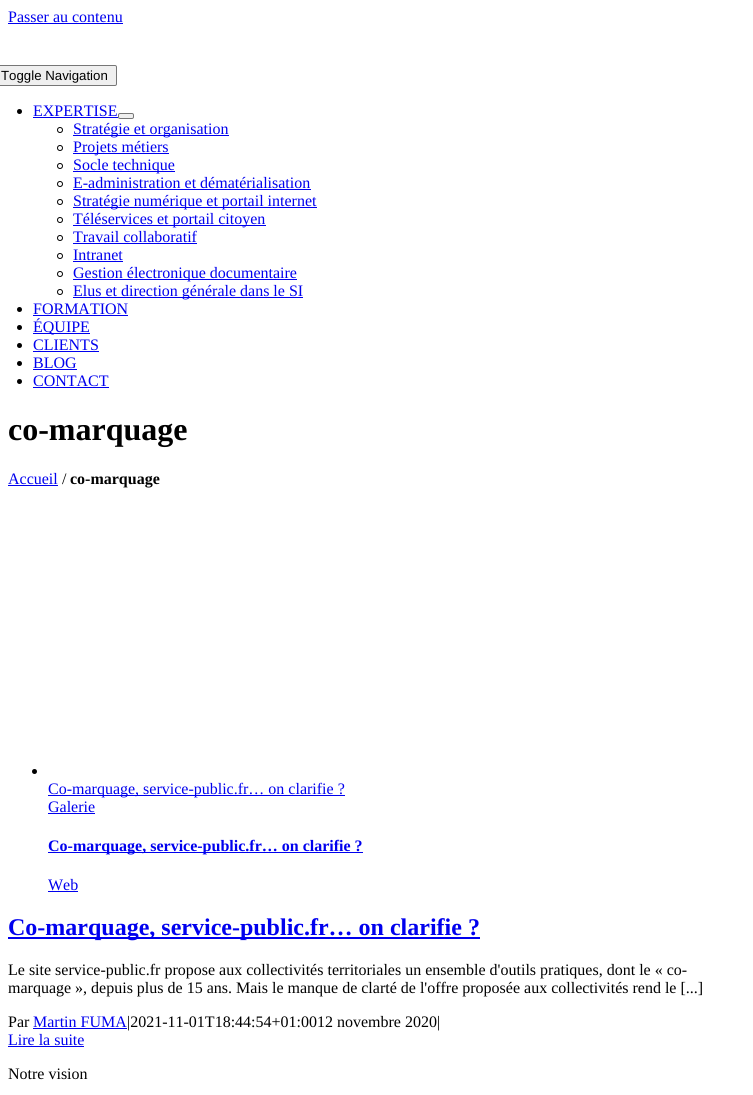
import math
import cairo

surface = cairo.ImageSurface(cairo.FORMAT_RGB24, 753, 1095)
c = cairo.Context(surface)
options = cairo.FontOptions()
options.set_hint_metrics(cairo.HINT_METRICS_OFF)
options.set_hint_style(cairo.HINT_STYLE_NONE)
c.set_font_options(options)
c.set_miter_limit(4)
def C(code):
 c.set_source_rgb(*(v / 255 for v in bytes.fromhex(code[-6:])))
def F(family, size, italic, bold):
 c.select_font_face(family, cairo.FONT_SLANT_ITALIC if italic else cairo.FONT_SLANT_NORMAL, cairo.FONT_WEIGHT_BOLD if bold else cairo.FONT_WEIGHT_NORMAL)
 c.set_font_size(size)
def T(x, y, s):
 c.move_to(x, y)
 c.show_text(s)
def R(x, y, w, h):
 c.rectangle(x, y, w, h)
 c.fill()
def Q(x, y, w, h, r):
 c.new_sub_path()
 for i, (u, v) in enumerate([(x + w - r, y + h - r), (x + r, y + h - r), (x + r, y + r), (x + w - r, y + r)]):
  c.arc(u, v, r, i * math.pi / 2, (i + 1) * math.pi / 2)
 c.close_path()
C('ffffff')
c.paint()
F('Liberation Serif',16,0,0)
C('0000ee')
T(8,22,'Passer au contenu')
R(8,23,115,1)
C('efefef')
Q(-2.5,65.5,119,20,1.5)
c.fill_preserve()
C('767676')
c.set_line_width(1)
c.stroke()
F('Liberation Sans',13.25,0,0)
C('000000')
T(1,80,'Toggle Navigation')
c.new_path()
c.arc(19.5,111.5,2.5,0,2 * math.pi)
c.fill()
F('Liberation Serif',16,0,0)
C('0000ee')
T(33,116,'EXPERTISE')
R(33,117,85,1)
C('efefef')
Q(118.5,113.5,15,5,1.5)
c.fill_preserve()
C('767676')
c.stroke()
c.arc(60,130,2.5,0,2 * math.pi)
C('000000')
c.stroke()
C('0000ee')
R(73,135,156,1)
T(73,134,'Stratégie et organisation')
c.new_path()
c.arc(60,148,2.5,0,2 * math.pi)
C('000000')
c.stroke()
C('0000ee')
R(73,153,96,1)
T(73,152,'Projets métiers')
c.new_path()
c.arc(60,166,2.5,0,2 * math.pi)
C('000000')
c.stroke()
C('0000ee')
R(73,171,102,1)
T(73,170,'Socle technique')
c.new_path()
c.arc(60,184,2.5,0,2 * math.pi)
C('000000')
c.stroke()
C('0000ee')
T(73,188,'E-administration et dématérialisation')
R(73,189,238,1)
c.new_path()
c.arc(60,202,2.5,0,2 * math.pi)
C('000000')
c.stroke()
C('0000ee')
R(73,207,244,1)
T(73,206,'Stratégie numérique et portail internet')
c.new_path()
c.arc(60,220,2.5,0,2 * math.pi)
C('000000')
c.stroke()
C('0000ee')
R(73,225,193,1)
T(73,224,'Téléservices et portail citoyen')
c.new_path()
c.arc(60,238,2.5,0,2 * math.pi)
C('000000')
c.stroke()
C('0000ee')
T(73,242,'Travail collaboratif')
R(73,243,124,1)
c.new_path()
c.arc(60,256,2.5,0,2 * math.pi)
C('000000')
c.stroke()
C('0000ee')
T(73,260,'Intranet')
R(73,261,50,1)
c.new_path()
c.arc(60,274,2.5,0,2 * math.pi)
C('000000')
c.stroke()
C('0000ee')
R(73,279,224,1)
T(73,278,'Gestion électronique documentaire')
c.new_path()
c.arc(60,292,2.5,0,2 * math.pi)
C('000000')
c.stroke()
C('0000ee')
R(73,297,230,1)
T(73,296,'Elus et direction générale dans le SI')
C('000000')
c.new_path()
c.arc(19.5,309.5,2.5,0,2 * math.pi)
c.fill()
C('0000ee')
T(33,314,'FORMATION')
R(33,315,95,1)
C('000000')
c.new_path()
c.arc(19.5,327.5,2.5,0,2 * math.pi)
c.fill()
C('0000ee')
R(33,333,57,1)
T(33,332,'ÉQUIPE')
C('000000')
c.new_path()
c.arc(19.5,345.5,2.5,0,2 * math.pi)
c.fill()
C('0000ee')
T(33,350,'CLIENTS')
R(33,351,66,1)
C('000000')
c.new_path()
c.arc(19.5,363.5,2.5,0,2 * math.pi)
c.fill()
C('0000ee')
T(33,368,'BLOG')
R(33,369,44,1)
C('000000')
c.new_path()
c.arc(19.5,381.5,2.5,0,2 * math.pi)
c.fill()
C('0000ee')
T(33,386,'CONTACT')
R(33,387,76,1)
F('Liberation Serif',32,0,1)
C('000000')
T(8,440,'co-marquage')
F('Liberation Serif',16,0,0)
C('0000ee')
T(8,484,'Accueil')
R(8,485,50,1)
C('000000')
T(62,484,'/')
F('Liberation Serif',16,0,1)
T(70,484,'co-marquage')
c.new_path()
c.arc(34.5,771.5,2.5,0,2 * math.pi)
c.fill()
C('0000ee')
R(48,795,297,1)
F('Liberation Serif',16,0,0)
T(48,794,'Co-marquage, service-public.fr… on clarifie ?')
T(48,812,'Galerie')
R(48,813,47,1)
R(48,852,315,1)
F('Liberation Serif',16,0,1)
T(48,851,'Co-marquage, service-public.fr… on clarifie ?')
F('Liberation Serif',16,0,0)
T(48,890,'Web')
R(48,891,30,1)
R(8,937,472,2)
F('Liberation Serif',24,0,1)
T(8,935,'Co-marquage, service-public.fr… on clarifie ?')
F('Liberation Serif',16,0,0)
C('000000')
T(8,975,'Le site service-public.fr propose aux collectivités territoriales un ensemble d\'outils pratiques, dont le « co-')
T(8,993,'marquage », depuis plus de 15 ans. Mais le manque de clarté de l\'offre proposée aux collectivités rend le [...]')
T(8,1027,'Par')
C('0000ee')
T(33,1027,'Martin FUMA')
R(33,1028,94,1)
C('000000')
T(127,1027,'|2021-11-01T18:44:54+01:0012 novembre 2020|')
C('0000ee')
T(8,1045,'Lire la suite')
R(8,1046,76,1)
C('000000')
T(8,1079,'Notre vision')
surface.write_to_png('o.png')
